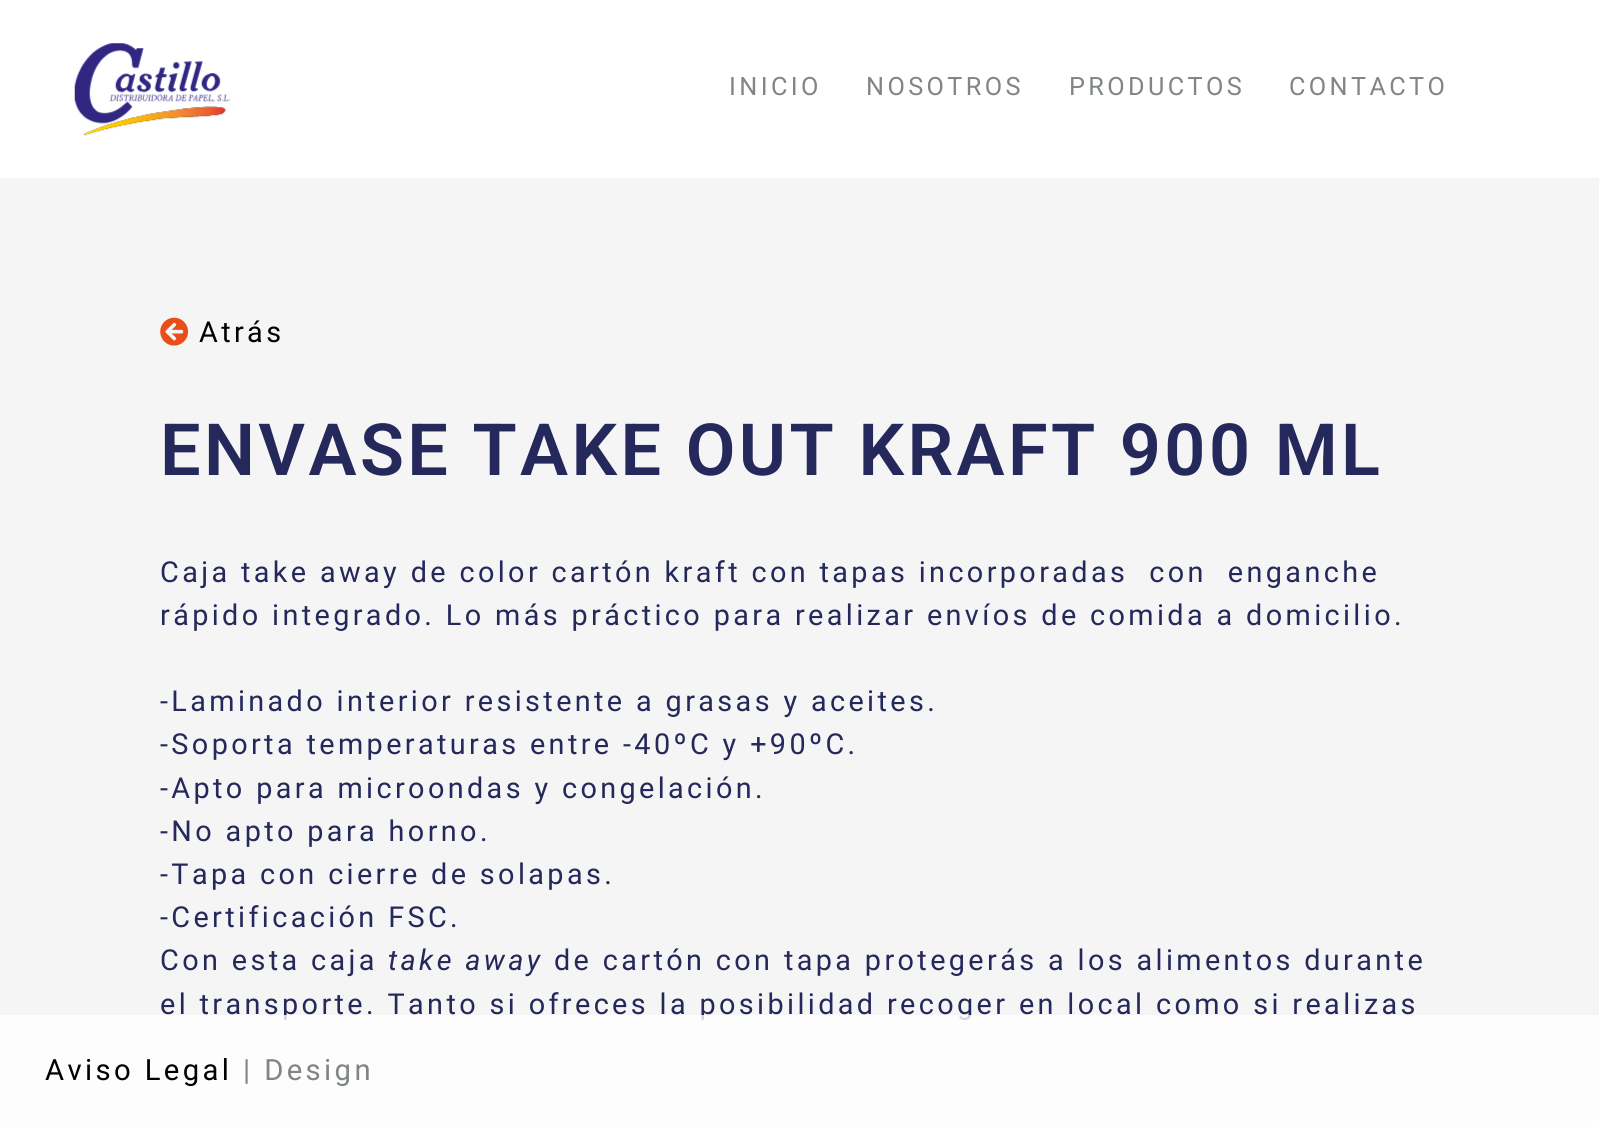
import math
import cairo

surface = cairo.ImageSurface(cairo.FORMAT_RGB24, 1599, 1127)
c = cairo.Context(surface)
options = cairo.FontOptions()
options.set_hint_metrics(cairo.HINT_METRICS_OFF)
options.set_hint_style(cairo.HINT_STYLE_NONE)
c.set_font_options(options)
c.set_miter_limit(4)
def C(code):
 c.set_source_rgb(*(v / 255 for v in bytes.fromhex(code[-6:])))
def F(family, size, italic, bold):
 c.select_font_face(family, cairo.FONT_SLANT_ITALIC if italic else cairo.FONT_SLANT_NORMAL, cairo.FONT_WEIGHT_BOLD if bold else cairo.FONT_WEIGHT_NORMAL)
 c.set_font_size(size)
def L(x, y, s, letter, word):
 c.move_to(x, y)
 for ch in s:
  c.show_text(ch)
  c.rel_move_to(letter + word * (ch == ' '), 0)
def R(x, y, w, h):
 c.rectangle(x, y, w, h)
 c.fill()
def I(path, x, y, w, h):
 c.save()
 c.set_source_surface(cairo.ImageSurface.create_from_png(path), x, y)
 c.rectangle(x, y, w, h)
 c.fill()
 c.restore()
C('f5f5f5')
c.paint()
C('ffffff')
R(0,0,1599,178)
I('1.png',74,43,156,93)
F('Roboto',25.25,0,0)
C('818587')
L(729,95,'INICIO',3.38,0)
L(866,95,'NOSOTROS',3.38,0)
L(1069,95,'PRODUCTOS',3.38,0)
L(1289,95,'CONTACTO',3.38,0)
I('2.png',160,317,29,29)
F('Roboto',28.8,0,0)
C('000000')
L(199,342,'Atrás',3.38,0)
F('Roboto SemiBold',72,0,0)
C('25285a')
L(160,475,'ENVASE TAKE OUT KRAFT 900 ML',3.38,0)
F('Roboto',28.8,0,0)
L(160,582,'Caja take away de color cartón kraft con tapas incorporadas  con  enganche',3.38,0)
L(160,625,'rápido integrado. Lo más práctico para realizar envíos de comida a domicilio.',3.38,0)
L(160,711,'-Laminado interior resistente a grasas y aceites.',3.38,0)
L(160,754,'-Soporta temperaturas entre -40ºC y +90ºC.',3.38,0)
L(160,798,'-Apto para microondas y congelación.',3.38,0)
L(160,841,'-No apto para horno.',3.38,0)
L(160,884,'-Tapa con cierre de solapas.',3.38,0)
L(160,927,'-Certificación FSC.',3.38,0)
L(160,970,'Con esta caja',3.38,0)
F('Roboto',28.8,1,0)
L(388,970,'take away',3.38,0)
F('Roboto',28.8,0,0)
L(554,970,'de cartón con tapa protegerás a los alimentos durante',3.38,0)
L(160,1014,'el transporte. Tanto si ofreces la posibilidad recoger en local como si realizas',3.38,0)
c.set_source_rgba(1,1,1,0.8)
R(0,1015,1599,112)
F('Roboto',29.25,0,0)
C('000000')
L(45,1080,'Aviso Legal',3.38,0)
C('818587')
L(243,1080,'| Design',3.38,0)
surface.write_to_png('o.png')
